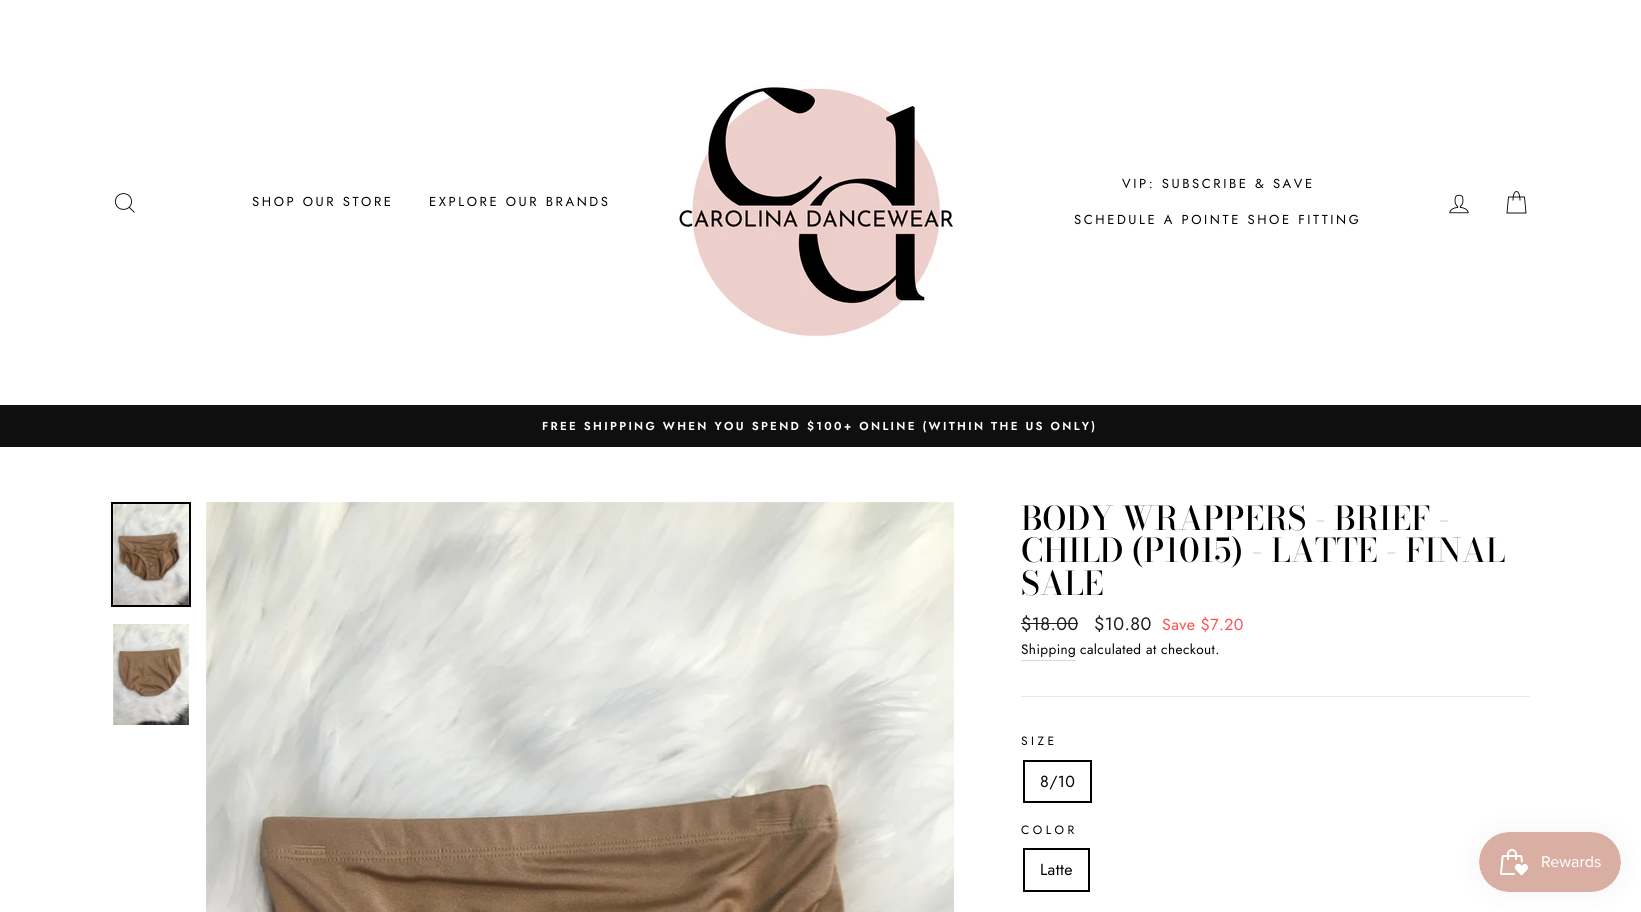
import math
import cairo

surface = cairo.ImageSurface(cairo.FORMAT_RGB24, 1641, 912)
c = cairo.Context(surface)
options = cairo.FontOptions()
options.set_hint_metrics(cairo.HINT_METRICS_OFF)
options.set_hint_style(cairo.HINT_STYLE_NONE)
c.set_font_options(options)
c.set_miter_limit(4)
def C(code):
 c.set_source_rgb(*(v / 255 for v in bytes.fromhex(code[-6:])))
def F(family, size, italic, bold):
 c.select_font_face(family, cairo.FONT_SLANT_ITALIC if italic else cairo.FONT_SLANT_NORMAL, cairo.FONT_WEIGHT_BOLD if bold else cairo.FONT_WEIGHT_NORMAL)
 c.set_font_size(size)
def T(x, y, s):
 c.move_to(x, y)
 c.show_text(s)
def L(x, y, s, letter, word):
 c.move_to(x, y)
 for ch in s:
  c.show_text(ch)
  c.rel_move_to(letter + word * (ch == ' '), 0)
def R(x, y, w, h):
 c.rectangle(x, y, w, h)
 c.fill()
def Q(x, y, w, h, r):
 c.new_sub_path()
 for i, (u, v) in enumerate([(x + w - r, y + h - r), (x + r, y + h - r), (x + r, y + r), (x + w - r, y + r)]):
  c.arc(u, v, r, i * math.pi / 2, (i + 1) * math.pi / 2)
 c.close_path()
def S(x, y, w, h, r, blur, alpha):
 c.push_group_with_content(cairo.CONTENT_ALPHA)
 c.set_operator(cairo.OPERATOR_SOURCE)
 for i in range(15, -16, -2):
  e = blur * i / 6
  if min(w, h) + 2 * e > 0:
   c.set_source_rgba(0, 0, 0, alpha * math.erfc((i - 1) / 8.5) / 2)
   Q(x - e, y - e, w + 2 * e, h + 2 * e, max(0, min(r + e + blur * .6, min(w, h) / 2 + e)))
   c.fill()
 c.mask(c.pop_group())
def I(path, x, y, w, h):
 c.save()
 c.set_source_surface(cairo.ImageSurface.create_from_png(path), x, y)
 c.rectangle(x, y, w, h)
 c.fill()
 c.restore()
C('ffffff')
c.paint()
c.new_path()
c.move_to(131.5,201.5)
c.curve_to(131.5,212,115.5,212,115.5,201.5)
c.curve_to(115.5,191,131.5,191,131.5,201.5)
c.close_path()
c.move_to(134.5,212.5)
c.line_to(129.5,207.5)
C('000000')
c.set_line_width(.9)
c.stroke()
F('Jost',13,0,0)
L(252,206,'SHOP OUR STORE',2.6,0)
L(429,206,'EXPLORE OUR BRANDS',2.6,0)
I('1.png',676,86,278,251)
L(1122,188,'VIP: SUBSCRIBE & SAVE',2.6,0)
L(1074,224,'SCHEDULE A POINTE SHOE FITTING',2.6,0)
I('2.png',1449,194,20,20)
c.new_path()
c.move_to(1513,200.5)
c.curve_to(1513,188.5,1520,188.5,1520,200.5)
c.move_to(1508.5,197)
c.line_to(1524.5,197)
c.line_to(1526,213)
c.line_to(1507,213)
c.close_path()
c.stroke()
C('0f0f0f')
R(0,405,1641,42)
F('Jost SemiBold',11.55,0,0)
C('ffffff')
L(542,430,'FREE SHIPPING WHEN YOU SPEND $100+ ONLINE (WITHIN THE US ONLY)',2.3,0)
c.rectangle(112,503,78,103)
C('000000')
c.set_line_width(2)
c.stroke()
I('3.png',113,504,76,101)
I('4.png',113,624,76,101)
I('5.png',206,502,748,410)
F('Bodoni Moda Medium',32.7,0,0)
T(1021,530,'BODY WRAPPERS - BRIEF -')
T(1021,562,'CHILD (P1015) - LATTE - FINAL')
T(1021,595,'SALE')
F('Jost',18,0,0)
C('1c1d1d')
L(1021,630,'$18.00',.4,0)
R(1021,623,57,1)
L(1094,630,'$10.80',.4,0)
F('Jost',16,0,0)
C('ff4e4e')
L(1162,630,'Save $7.20',.4,0)
C('d9d9d9')
R(1021,660,55,1)
F('Jost',13.6,0,0)
C('000000')
L(1021,654,'Shipping',.4,0)
L(1080,654,'calculated at checkout.',.4,0)
C('e8e8e1')
R(1021,696,509,1)
F('Jost',12,0,0)
C('000000')
L(1021,745,'SIZE',3.5,0)
c.rectangle(1024,761,67,41)
c.stroke()
F('Jost',16,0,0)
L(1040,787,'8/10',.4,0)
F('Jost',12,0,0)
L(1021,834,'COLOR',3.5,0)
c.rectangle(1024,849,65,42)
c.stroke()
F('Jost',16,0,0)
L(1040,875,'Latte',.4,0)
C('000000')
S(1479,832,142,60,30,12.5,.05)
I('6.png',1479,832,142,60)
surface.write_to_png('o.png')
